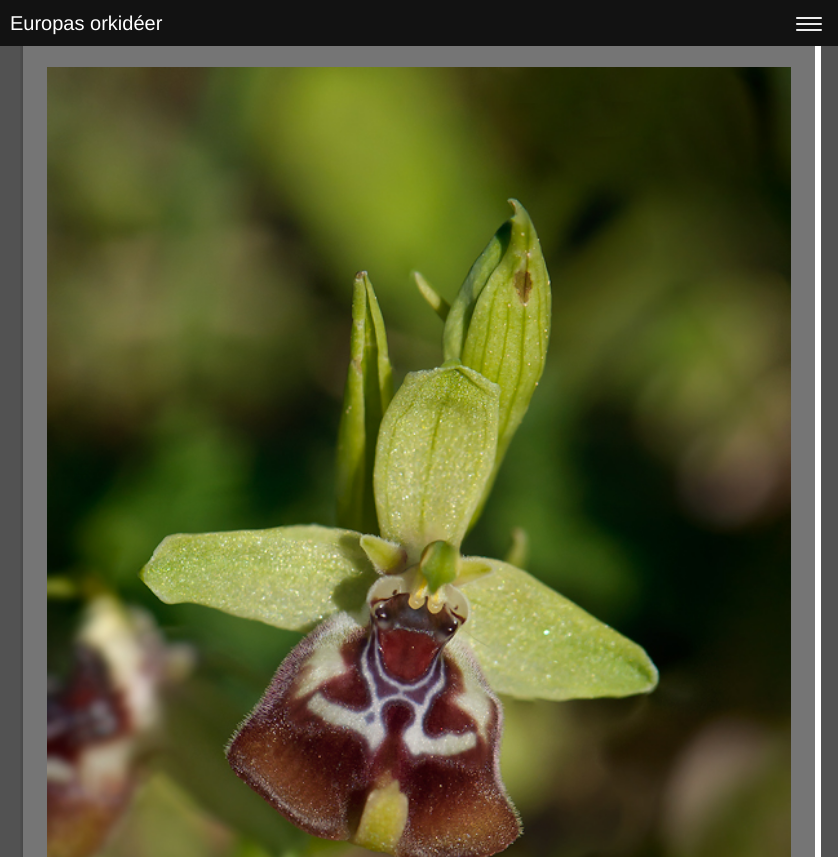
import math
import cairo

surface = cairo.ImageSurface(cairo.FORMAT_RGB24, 838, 857)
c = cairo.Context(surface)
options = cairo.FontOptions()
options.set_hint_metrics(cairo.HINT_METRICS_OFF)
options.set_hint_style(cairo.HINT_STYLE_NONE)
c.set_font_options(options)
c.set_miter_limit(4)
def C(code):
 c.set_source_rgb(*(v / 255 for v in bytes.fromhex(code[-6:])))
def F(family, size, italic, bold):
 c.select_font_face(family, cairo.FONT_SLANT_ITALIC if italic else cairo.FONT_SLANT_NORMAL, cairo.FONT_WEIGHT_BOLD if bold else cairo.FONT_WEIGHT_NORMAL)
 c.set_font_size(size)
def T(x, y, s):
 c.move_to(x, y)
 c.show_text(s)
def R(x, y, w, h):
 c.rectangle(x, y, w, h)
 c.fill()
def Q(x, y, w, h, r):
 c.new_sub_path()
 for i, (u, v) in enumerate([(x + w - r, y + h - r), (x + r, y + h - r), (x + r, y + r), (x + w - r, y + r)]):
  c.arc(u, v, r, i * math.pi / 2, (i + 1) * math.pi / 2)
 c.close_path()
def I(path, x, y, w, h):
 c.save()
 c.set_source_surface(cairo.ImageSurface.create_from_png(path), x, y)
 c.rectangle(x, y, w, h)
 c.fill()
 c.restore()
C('525252')
c.paint()
C('121212')
R(0,0,838,46)
F('Liberation Sans',20,0,0)
C('ffffff')
T(10,30,'Europas orkidéer')
C('eeeeee')
Q(796,17,26,2,1)
c.fill()
Q(796,23,26,2,1)
c.fill()
Q(796,29,26,2,1)
c.fill()
I('1.png',20,46,801,811)
C('757575')
R(23,46,792,811)
I('2.png',47,67,744,790)
surface.write_to_png('o.png')
